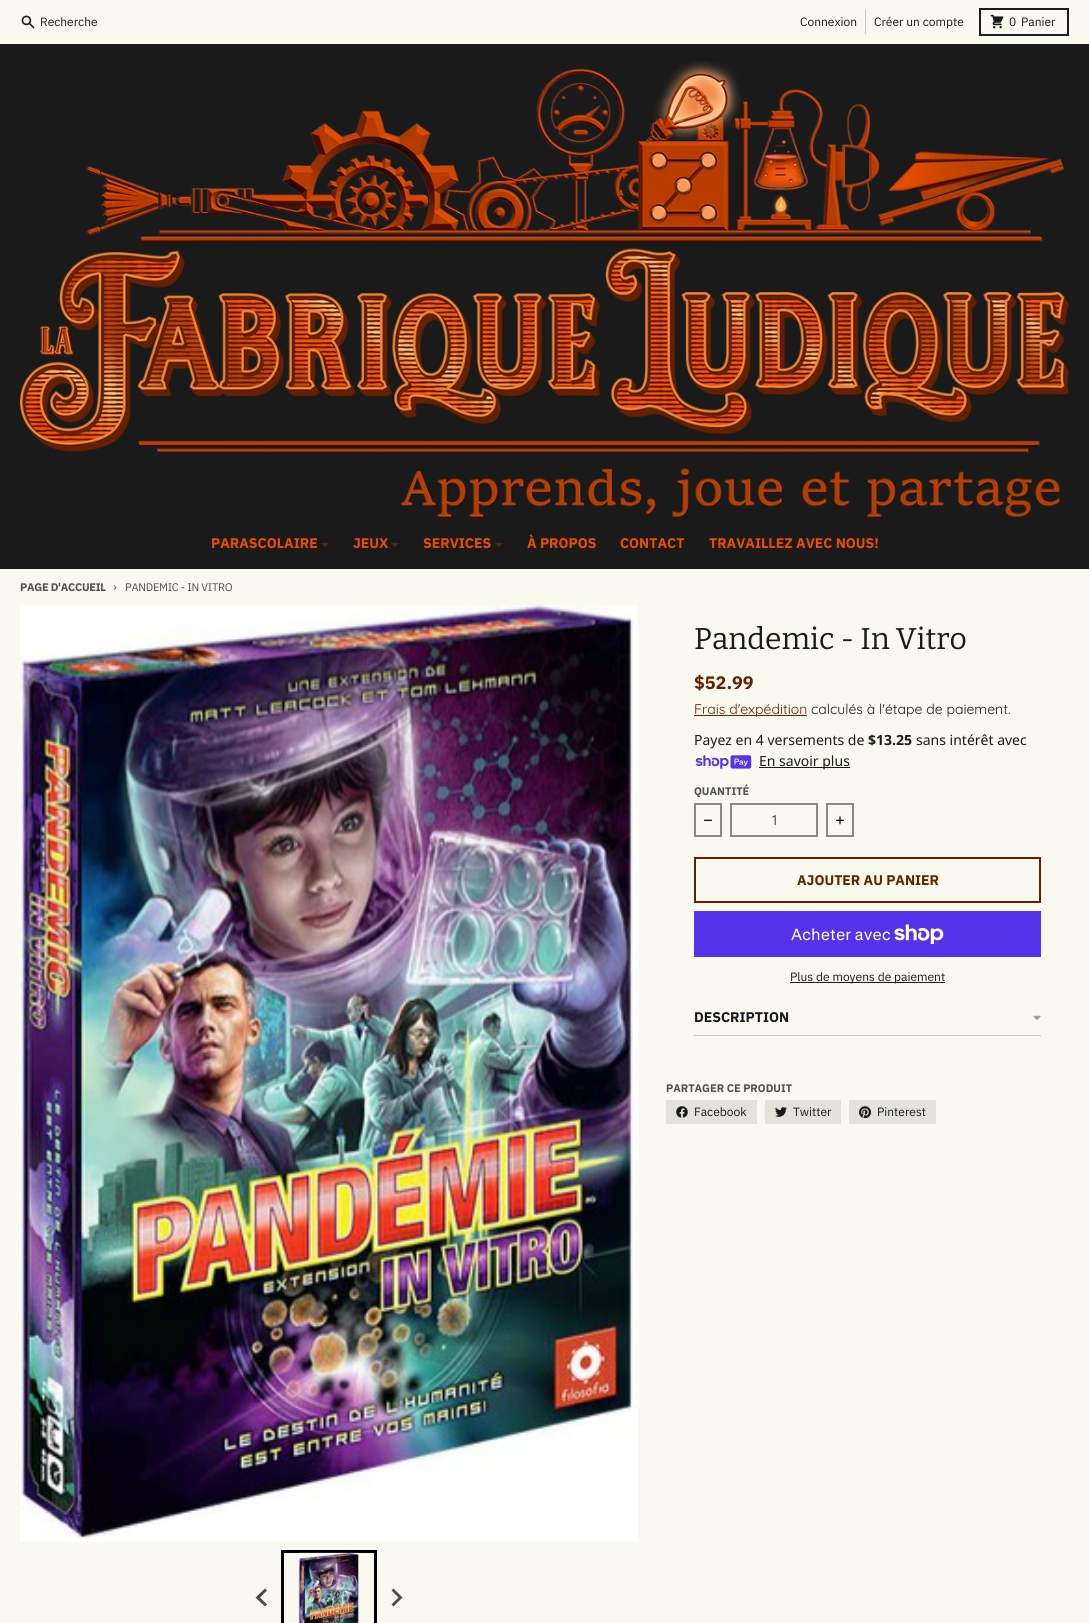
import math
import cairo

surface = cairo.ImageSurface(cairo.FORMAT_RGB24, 1089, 1623)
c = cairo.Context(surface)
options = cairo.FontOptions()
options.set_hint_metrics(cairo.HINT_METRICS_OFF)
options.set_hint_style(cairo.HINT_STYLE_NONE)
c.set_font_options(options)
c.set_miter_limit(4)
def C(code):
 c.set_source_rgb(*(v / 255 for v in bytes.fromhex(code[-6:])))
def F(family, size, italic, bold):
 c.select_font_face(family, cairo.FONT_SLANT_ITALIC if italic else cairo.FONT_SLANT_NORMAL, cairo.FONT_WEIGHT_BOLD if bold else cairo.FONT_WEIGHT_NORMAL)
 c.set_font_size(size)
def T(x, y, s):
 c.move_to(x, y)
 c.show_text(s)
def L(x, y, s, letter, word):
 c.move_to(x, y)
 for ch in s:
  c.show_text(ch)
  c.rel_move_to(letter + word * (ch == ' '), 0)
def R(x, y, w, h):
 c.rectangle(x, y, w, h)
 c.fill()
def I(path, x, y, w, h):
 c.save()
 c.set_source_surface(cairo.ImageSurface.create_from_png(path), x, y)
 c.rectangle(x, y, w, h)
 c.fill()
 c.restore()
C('1a1a1a')
c.paint()
C('f9f9ef')
R(0,0,1089,44)
I('1.png',21,15,14,14)
F('IBM Plex Sans',12,0,0)
C('1a1a1a')
T(40,26,'Recherche')
T(800,26,'Connexion')
C('ccccc4')
R(865,10,1,24)
C('1a1a1a')
T(874,26,'Créer un compte')
c.rectangle(980,9,88,26)
c.stroke()
I('2.png',990,14,14,15)
T(1009,26,'0')
T(1021,26,'Panier')
I('3.png',20,61,1049,456)
F('IBM Plex Sans',14,0,1)
C('ea4e00')
T(211,548,'PARASCOLAIRE')
I('4.png',321,542,8,5)
T(353,548,'JEUX')
I('4.png',391,542,8,5)
T(423,548,'SERVICES')
I('4.png',495,542,8,5)
T(527,548,'À PROPOS')
T(620,548,'CONTACT')
T(709,548,'TRAVAILLEZ AVEC NOUS!')
C('f9f9ef')
R(0,569,1089,1054)
F('IBM Plex Sans',11,0,1)
C('52524f')
L(20,591,'PAGE D\'ACCUEIL',-.25,0)
F('IBM Plex Sans',12,0,0)
L(113,591,'›',-.25,0)
F('IBM Plex Sans',11,0,0)
L(125,591,'PANDEMIC - IN VITRO',-.25,0)
I('5.png',20,605,618,937)
c.rectangle(282.5,1551.5,93,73)
C('000000')
c.set_line_width(3)
c.stroke()
I('6.png',298,1552,61,71)
C('4b4b48')
c.new_path()
c.move_to(265,1588.5)
c.line_to(267,1590.5)
c.line_to(260,1597.5)
c.line_to(267,1604.5)
c.line_to(265,1606.5)
c.line_to(255.5,1597.5)
c.close_path()
c.fill()
c.new_path()
c.move_to(393.5,1588.5)
c.line_to(391.5,1590.5)
c.line_to(398.5,1597.5)
c.line_to(391.5,1604.5)
c.line_to(393.5,1606.5)
c.line_to(402.5,1597.5)
c.close_path()
c.fill()
F('Bitter',30,0,0)
C('1a1a1a')
T(694,649,'Pandemic - In Vitro')
F('IBM Plex Sans',18,0,1)
C('652200')
T(694,689,'$52.99')
R(694,715,113,1)
F('Quicksand',14,0,0)
T(694,714,'Frais d\'expédition')
C('1a1a1a')
T(811,714,'calculés à l\'étape de paiement.')
F('Noto Sans',14,0,0)
T(694,745,'Payez en 4 versements de')
F('Noto Sans',14,0,1)
T(868,745,'$13.25')
F('Noto Sans',14,0,0)
T(916,745,'sans intérêt avec')
I('7.png',695,755,57,14)
R(759,767,91,1)
T(759,766,'En savoir plus')
F('IBM Plex Sans',11,0,1)
C('52524f')
T(694,795,'QUANTITÉ')
c.rectangle(695,804,26,32)
C('8a8a85')
c.set_line_width(2)
c.stroke()
I('8.png',704,819,8,2)
c.rectangle(731,804,86,32)
c.stroke()
F('Quicksand',14,0,0)
C('1a1a1a')
T(772,825,'1')
c.rectangle(827,804,26,32)
C('8a8a85')
c.stroke()
I('9.png',836,816,8,9)
c.rectangle(695,858,345,44)
C('652200')
c.stroke()
F('IBM Plex Sans',14,0,1)
T(797,885,'AJOUTER AU PANIER')
C('5433eb')
R(694,911,347,46)
F('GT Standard',16,0,0)
C('ffffff')
T(791,940,'Acheter avec')
I('10.png',894,924,50,20)
C('1a1a1a')
R(790,982,155,1)
F('IBM Plex Sans',12,0,0)
T(790,981,'Plus de moyens de paiement')
C('ccccc4')
R(694,1035,347,1)
F('IBM Plex Sans',14,0,1)
C('1a1a1a')
T(694,1022,'DESCRIPTION')
I('11.png',1033,1015,8,5)
F('IBM Plex Sans',11,0,1)
C('52524f')
T(666,1092,'PARTAGER CE PRODUIT')
C('e3e3da')
R(666,1100,91,24)
I('12.png',676,1106,12,12)
F('IBM Plex Sans',12,0,0)
C('1a1a1a')
T(694,1116,'Facebook')
C('e3e3da')
R(765,1100,76,24)
I('13.png',775,1107,12,10)
C('1a1a1a')
T(793,1116,'Twitter')
C('e3e3da')
R(849,1100,87,24)
I('14.png',859,1106,12,12)
C('1a1a1a')
T(877,1116,'Pinterest')
surface.write_to_png('o.png')
